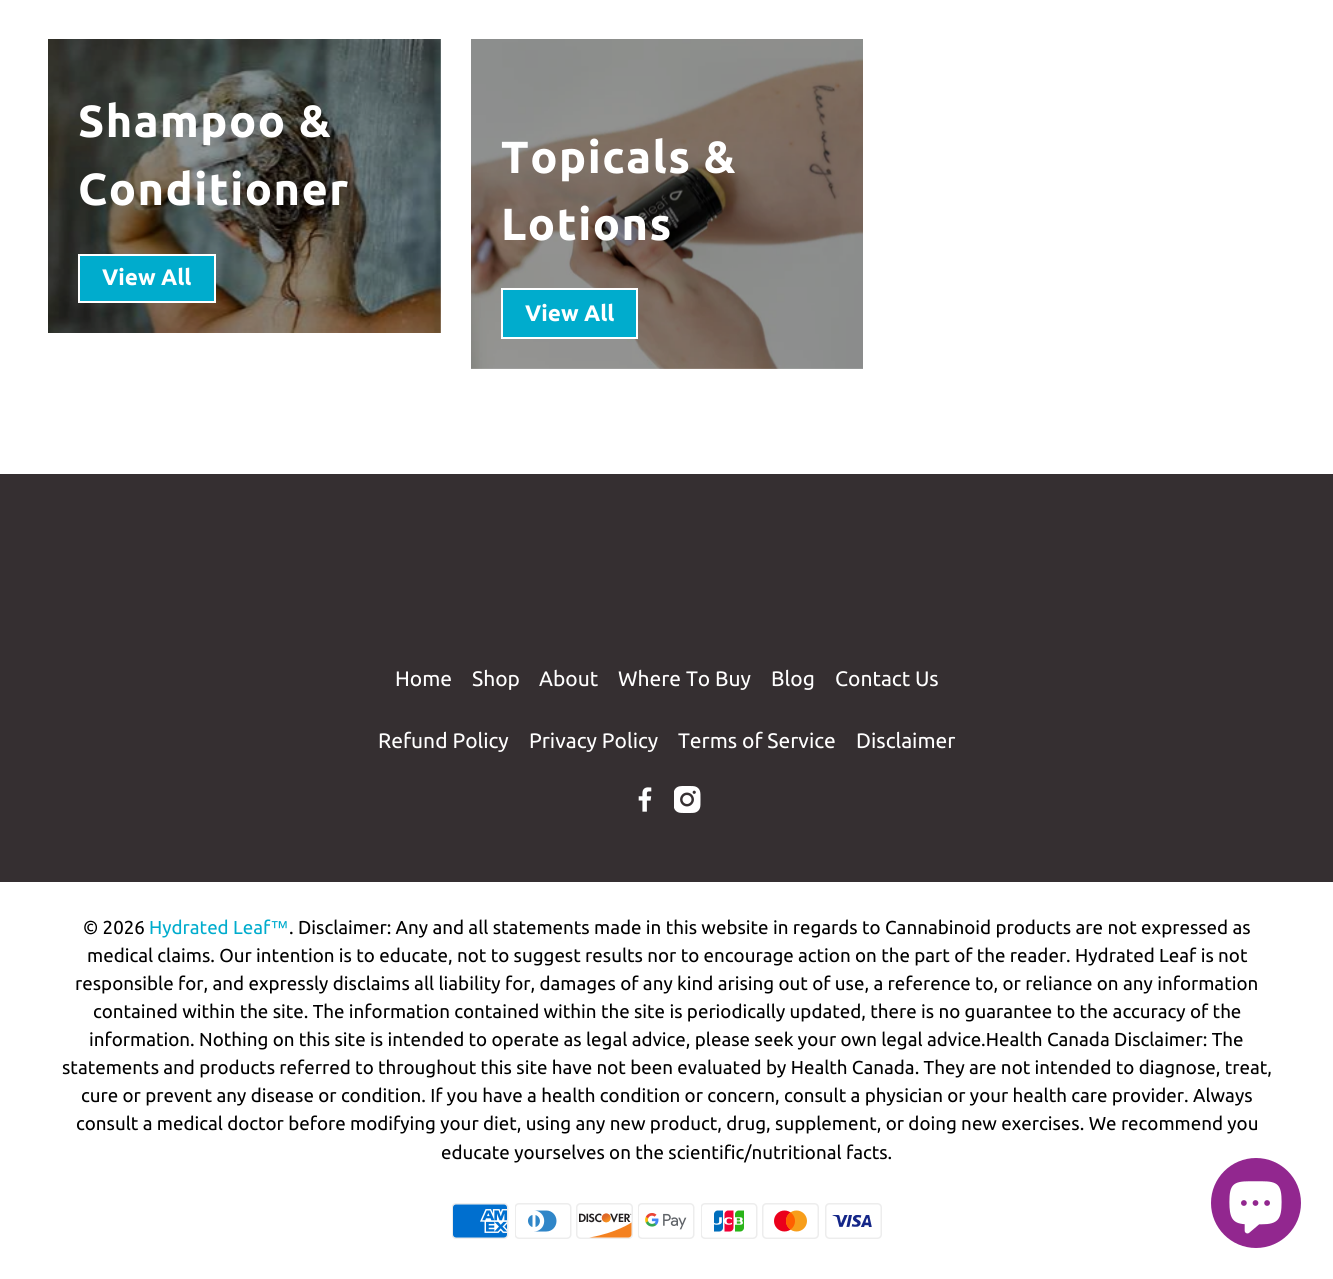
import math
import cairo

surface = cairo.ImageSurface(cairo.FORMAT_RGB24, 1333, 1279)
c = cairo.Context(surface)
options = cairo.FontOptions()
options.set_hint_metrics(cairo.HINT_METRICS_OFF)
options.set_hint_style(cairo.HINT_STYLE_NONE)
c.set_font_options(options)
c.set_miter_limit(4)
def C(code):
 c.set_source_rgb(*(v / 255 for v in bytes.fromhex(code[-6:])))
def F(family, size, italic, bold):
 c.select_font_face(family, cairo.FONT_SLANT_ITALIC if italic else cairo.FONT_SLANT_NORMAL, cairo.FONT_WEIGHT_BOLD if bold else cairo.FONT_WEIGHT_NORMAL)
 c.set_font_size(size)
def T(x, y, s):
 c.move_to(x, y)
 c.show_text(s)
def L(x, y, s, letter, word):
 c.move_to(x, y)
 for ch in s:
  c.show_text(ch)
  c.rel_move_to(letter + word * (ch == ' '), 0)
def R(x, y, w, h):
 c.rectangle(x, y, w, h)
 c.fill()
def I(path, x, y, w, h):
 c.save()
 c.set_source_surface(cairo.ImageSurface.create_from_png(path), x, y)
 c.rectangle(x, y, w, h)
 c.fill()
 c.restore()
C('ffffff')
c.paint()
I('1.png',48,39,393,294)
F('Ubuntu',45,0,1)
C('ffffff')
L(78,137,'Shampoo &',1.5,0)
L(78,205,'Conditioner',1.5,0)
C('00accd')
c.rectangle(79,255,136,47)
c.fill_preserve()
C('ffffff')
c.stroke()
F('Ubuntu',22.5,0,1)
T(102,285,'View All')
I('2.png',471,39,392,330)
F('Ubuntu',45,0,1)
L(501,173,'Topicals &',1.5,0)
L(501,240,'Lotions',1.5,0)
C('00accd')
c.rectangle(502,289,135,49)
c.fill_preserve()
C('ffffff')
c.stroke()
F('Ubuntu',22.5,0,1)
T(525,321,'View All')
C('352f31')
R(0,474,1333,408)
F('Ubuntu',21,0,0)
C('ffffff')
T(395,686,'Home')
T(472,686,'Shop')
T(539,686,'About')
T(618,686,'Where To Buy')
T(771,686,'Blog')
T(835,686,'Contact Us')
T(378,748,'Refund Policy')
T(529,748,'Privacy Policy')
T(678,748,'Terms of Service')
T(856,748,'Disclaimer')
I('3.png',638,787,14,25)
I('4.png',674,786,27,27)
F('Ubuntu',18.75,0,0)
C('000000')
T(83,934,'© 2026')
C('00accd')
T(149,934,'Hydrated Leaf')
F('Liberation Sans',18.75,0,0)
T(270,934,'™')
F('Ubuntu',18.75,0,0)
C('000000')
T(289,934,'. Disclaimer: Any and all statements made in this website in regards to Cannabinoid products are not expressed as')
T(87,962,'medical claims. Our intention is to educate, not to suggest results nor to encourage action on the part of the reader. Hydrated Leaf is not')
T(75,990,'responsible for, and expressly disclaims all liability for, damages of any kind arising out of use, a reference to, or reliance on any information')
T(93,1018,'contained within the site. The information contained within the site is periodically updated, there is no guarantee to the accuracy of the')
T(89,1046,'information. Nothing on this site is intended to operate as legal advice, please seek your own legal advice.Health Canada Disclaimer: The')
T(62,1074,'statements and products referred to throughout this site have not been evaluated by Health Canada. They are not intended to diagnose, treat,')
T(81,1102,'cure or prevent any disease or condition. If you have a health condition or concern, consult a physician or your health care provider. Always')
T(76,1130,'consult a medical doctor before modifying your diet, using any new product, drug, supplement, or doing new exercises. We recommend you')
T(441,1159,'educate yourselves on the scientific/nutritional facts.')
I('5.png',452,1203,57,36)
I('6.png',515,1203,57,36)
I('7.png',576,1203,57,36)
I('8.png',638,1203,57,36)
I('9.png',701,1203,57,36)
I('10.png',762,1203,57,36)
I('11.png',825,1203,57,36)
C('92278f')
c.arc(1256,1203,45,0,2 * math.pi)
c.fill()
I('12.png',1229,1181,53,53)
surface.write_to_png('o.png')
